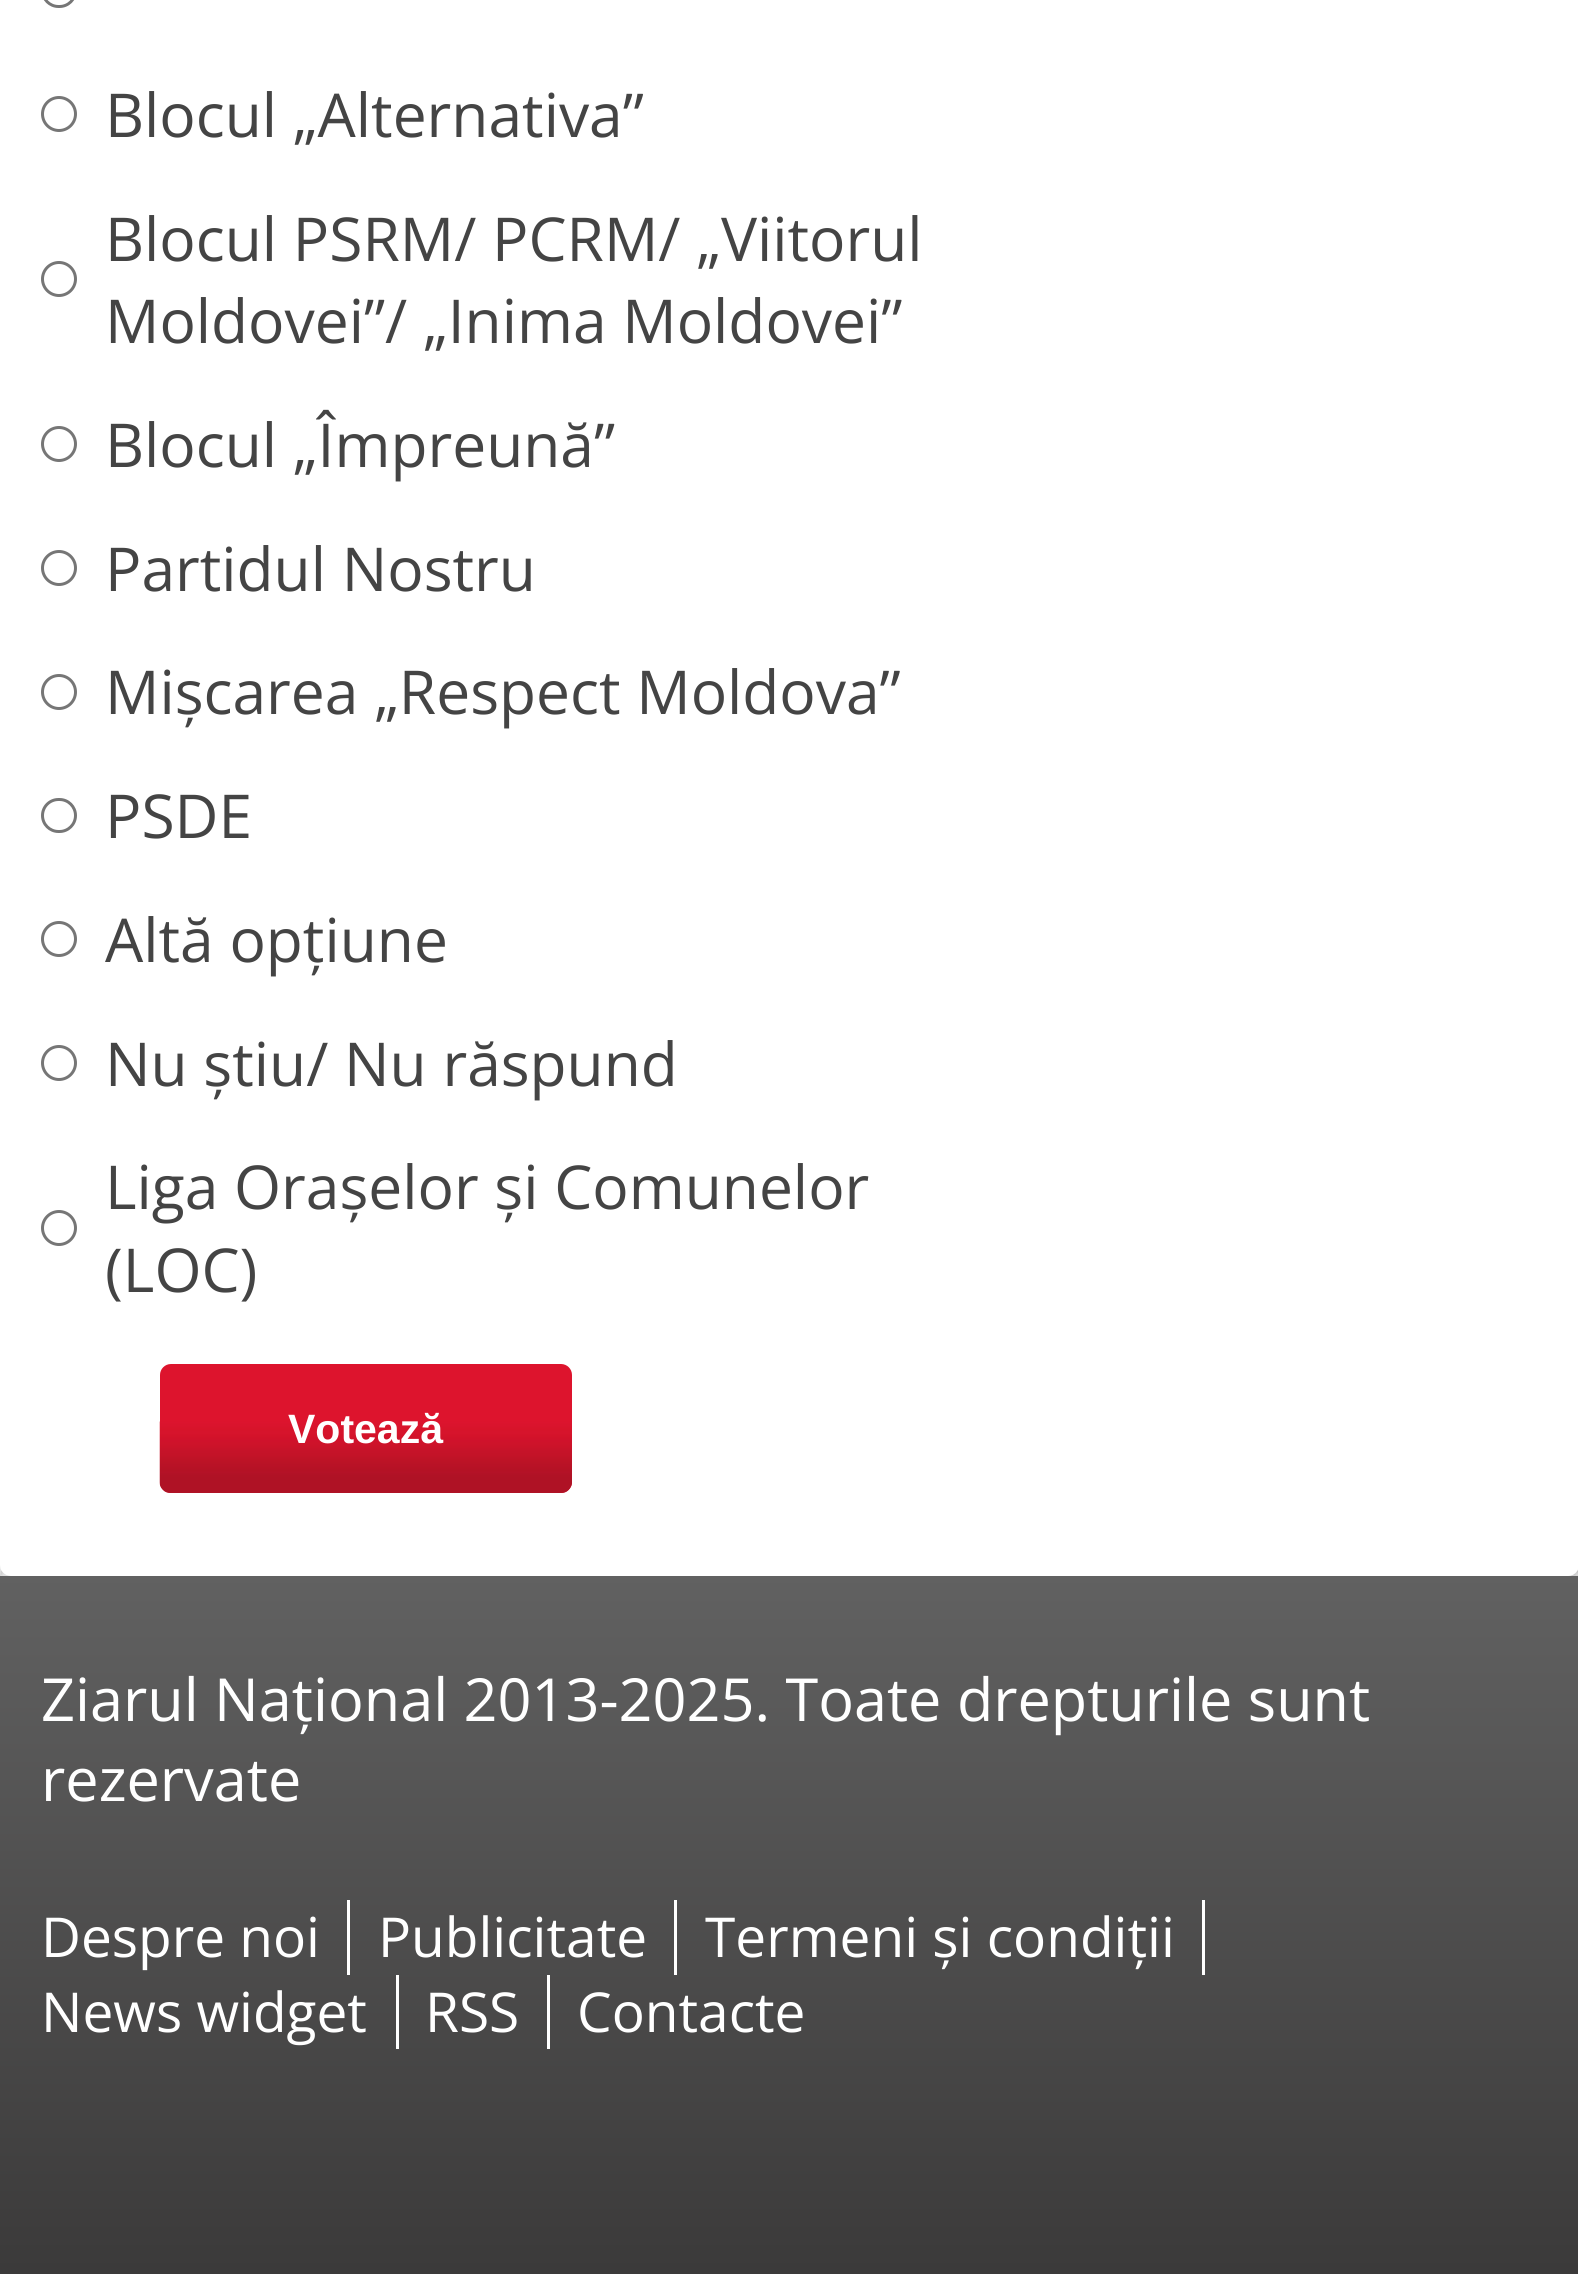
import math
import cairo

surface = cairo.ImageSurface(cairo.FORMAT_RGB24, 1578, 2274)
c = cairo.Context(surface)
options = cairo.FontOptions()
options.set_hint_metrics(cairo.HINT_METRICS_OFF)
options.set_hint_style(cairo.HINT_STYLE_NONE)
c.set_font_options(options)
c.set_miter_limit(4)
def C(code):
 c.set_source_rgb(*(v / 255 for v in bytes.fromhex(code[-6:])))
def F(family, size, italic, bold):
 c.select_font_face(family, cairo.FONT_SLANT_ITALIC if italic else cairo.FONT_SLANT_NORMAL, cairo.FONT_WEIGHT_BOLD if bold else cairo.FONT_WEIGHT_NORMAL)
 c.set_font_size(size)
def T(x, y, s):
 c.move_to(x, y)
 c.show_text(s)
def R(x, y, w, h):
 c.rectangle(x, y, w, h)
 c.fill()
def Q(x, y, w, h, r):
 c.new_sub_path()
 for i, (u, v) in enumerate([(x + w - r, y + h - r), (x + r, y + h - r), (x + r, y + r), (x + w - r, y + r)]):
  c.arc(u, v, r, i * math.pi / 2, (i + 1) * math.pi / 2)
 c.close_path()
def S(x, y, w, h, r, blur, alpha):
 c.push_group_with_content(cairo.CONTENT_ALPHA)
 c.set_operator(cairo.OPERATOR_SOURCE)
 for i in range(15, -16, -2):
  e = blur * i / 6
  if min(w, h) + 2 * e > 0:
   c.set_source_rgba(0, 0, 0, alpha * math.erfc((i - 1) / 8.5) / 2)
   Q(x - e, y - e, w + 2 * e, h + 2 * e, max(0, min(r + e + blur * .6, min(w, h) / 2 + e)))
   c.fill()
 c.mask(c.pop_group())
def I(path, x, y, w, h):
 c.save()
 c.set_source_surface(cairo.ImageSurface.create_from_png(path), x, y)
 c.rectangle(x, y, w, h)
 c.fill()
 c.restore()
C('ffffff')
c.paint()
I('1.png',0,1565,1578,11)
C('000000')
S(3,-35,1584,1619,14,7,.1)
C('ffffff')
Q(0,-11,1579,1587,11)
c.fill()
Q(42.5,-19.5,33,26,16)
C('767676')
c.set_line_width(3)
c.stroke()
c.arc(59,114,16.5,0,2 * math.pi)
c.stroke()
F('Open Sans',60.5,0,0)
C('444444')
T(105,137,'Blocul „Alternativa”')
c.new_path()
c.arc(59,279,16.5,0,2 * math.pi)
C('767676')
c.stroke()
C('444444')
T(105,261,'Blocul PSRM/ PCRM/ „Viitorul')
T(105,343,'Moldovei”/ „Inima Moldovei”')
c.new_path()
c.arc(59,444,16.5,0,2 * math.pi)
C('767676')
c.stroke()
C('444444')
T(105,467,'Blocul „Împreună”')
c.new_path()
c.arc(59,568,16.5,0,2 * math.pi)
C('767676')
c.stroke()
C('444444')
T(105,591,'Partidul Nostru')
c.new_path()
c.arc(59,692,16.5,0,2 * math.pi)
C('767676')
c.stroke()
C('444444')
T(105,714,'Mișcarea „Respect Moldova”')
Q(42.5,799.5,33,32,16)
C('767676')
c.stroke()
C('444444')
T(105,838,'PSDE')
c.new_path()
c.arc(59,939,16.5,0,2 * math.pi)
C('767676')
c.stroke()
C('444444')
T(105,962,'Altă opțiune')
c.new_path()
c.arc(59,1063,16.5,0,2 * math.pi)
C('767676')
c.stroke()
C('444444')
T(105,1086,'Nu știu/ Nu răspund')
c.new_path()
c.arc(59,1228,16.5,0,2 * math.pi)
C('767676')
c.stroke()
C('444444')
T(105,1209,'Liga Orașelor și Comunelor')
T(105,1292,'(LOC)')
C('dd142d')
Q(160,1364,412,129,11)
c.fill()
I('2.png',159,1421,413,72)
F('Liberation Sans',41,0,1)
C('ffffff')
T(288,1443,'Votează')
gradient = cairo.LinearGradient(789,1576,789,2274)
gradient.add_color_stop_rgba(0,0.38,0.38,0.38,1)
gradient.add_color_stop_rgba(1,0.231,0.227,0.227,1)
c.set_source(gradient)
R(0,1576,1578,698)
F('Open Sans',59.4,0,0)
C('ffffff')
T(41,1721,'Ziarul Național 2013-2025. Toate drepturile sunt')
T(41,1801,'rezervate')
R(347,1900,3,75)
F('Open Sans',55,0,0)
T(41,1957,'Despre noi')
R(674,1900,3,75)
T(378,1957,'Publicitate')
R(1202,1900,3,75)
T(705,1957,'Termeni și condiții')
R(396,1975,3,74)
T(41,2032,'News widget')
R(547,1975,3,74)
T(425,2032,'RSS')
T(577,2032,'Contacte')
surface.write_to_png('o.png')
